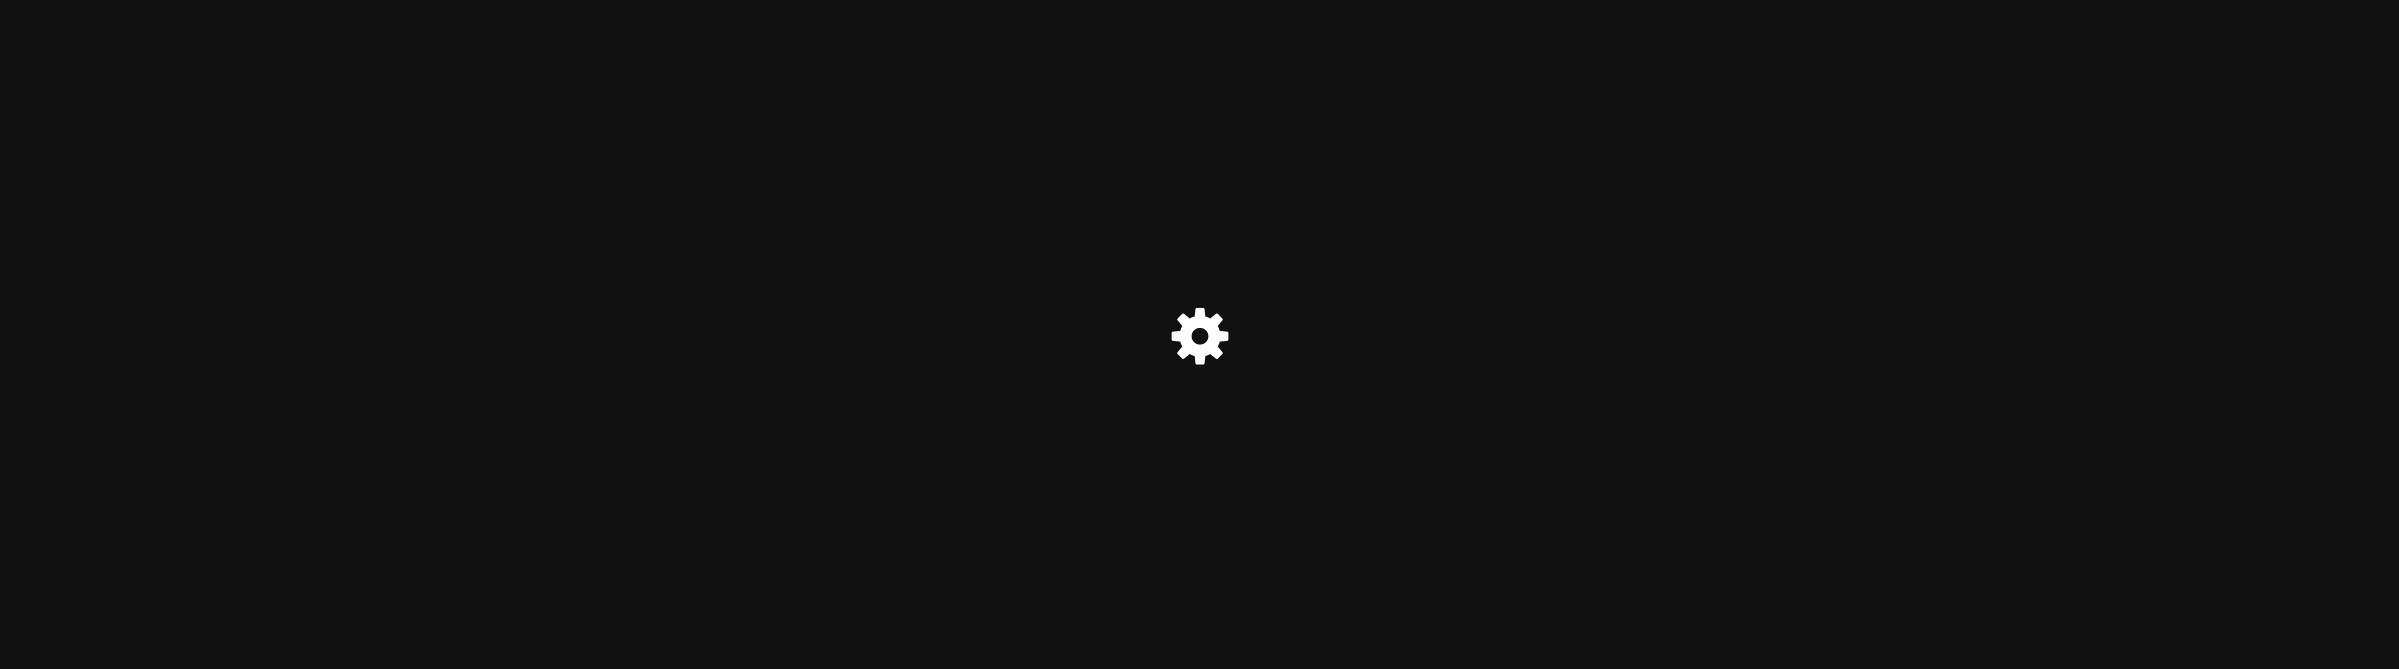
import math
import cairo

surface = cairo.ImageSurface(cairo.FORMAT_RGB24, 2399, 669)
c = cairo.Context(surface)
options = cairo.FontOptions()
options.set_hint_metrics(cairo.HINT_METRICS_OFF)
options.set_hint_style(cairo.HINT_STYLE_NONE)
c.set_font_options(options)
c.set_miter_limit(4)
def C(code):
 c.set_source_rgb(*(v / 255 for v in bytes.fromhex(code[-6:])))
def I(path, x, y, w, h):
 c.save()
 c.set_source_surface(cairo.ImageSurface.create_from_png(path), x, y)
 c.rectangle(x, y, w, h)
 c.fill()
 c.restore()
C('111111')
c.paint()
I('1.png',1171,307,58,58)
surface.write_to_png('o.png')
